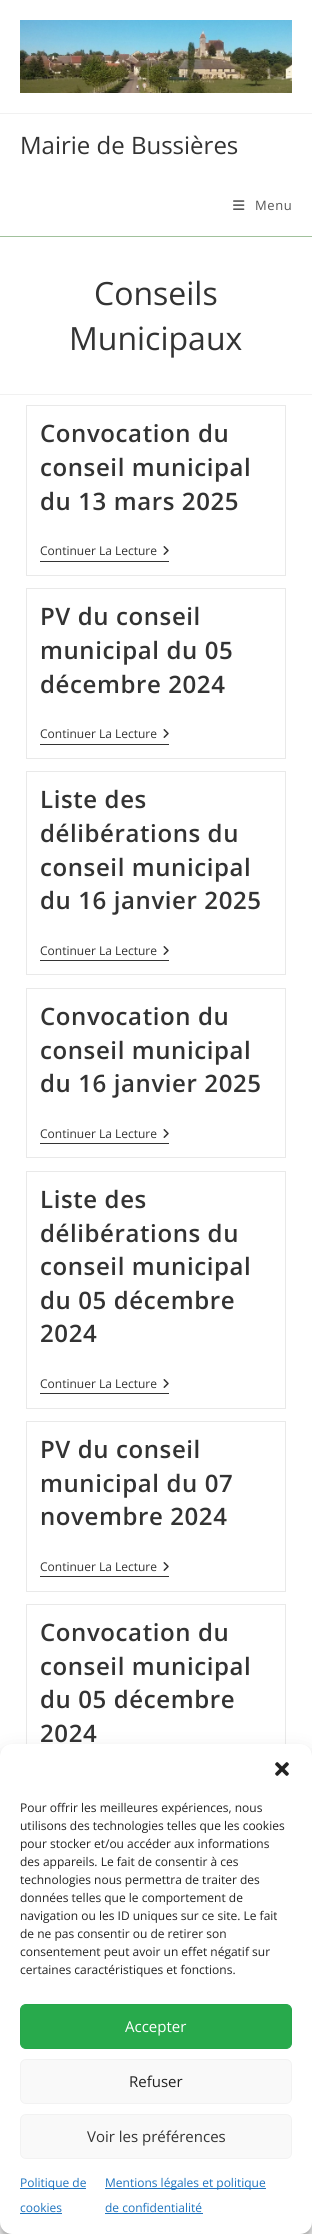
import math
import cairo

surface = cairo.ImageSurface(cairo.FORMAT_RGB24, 312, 2234)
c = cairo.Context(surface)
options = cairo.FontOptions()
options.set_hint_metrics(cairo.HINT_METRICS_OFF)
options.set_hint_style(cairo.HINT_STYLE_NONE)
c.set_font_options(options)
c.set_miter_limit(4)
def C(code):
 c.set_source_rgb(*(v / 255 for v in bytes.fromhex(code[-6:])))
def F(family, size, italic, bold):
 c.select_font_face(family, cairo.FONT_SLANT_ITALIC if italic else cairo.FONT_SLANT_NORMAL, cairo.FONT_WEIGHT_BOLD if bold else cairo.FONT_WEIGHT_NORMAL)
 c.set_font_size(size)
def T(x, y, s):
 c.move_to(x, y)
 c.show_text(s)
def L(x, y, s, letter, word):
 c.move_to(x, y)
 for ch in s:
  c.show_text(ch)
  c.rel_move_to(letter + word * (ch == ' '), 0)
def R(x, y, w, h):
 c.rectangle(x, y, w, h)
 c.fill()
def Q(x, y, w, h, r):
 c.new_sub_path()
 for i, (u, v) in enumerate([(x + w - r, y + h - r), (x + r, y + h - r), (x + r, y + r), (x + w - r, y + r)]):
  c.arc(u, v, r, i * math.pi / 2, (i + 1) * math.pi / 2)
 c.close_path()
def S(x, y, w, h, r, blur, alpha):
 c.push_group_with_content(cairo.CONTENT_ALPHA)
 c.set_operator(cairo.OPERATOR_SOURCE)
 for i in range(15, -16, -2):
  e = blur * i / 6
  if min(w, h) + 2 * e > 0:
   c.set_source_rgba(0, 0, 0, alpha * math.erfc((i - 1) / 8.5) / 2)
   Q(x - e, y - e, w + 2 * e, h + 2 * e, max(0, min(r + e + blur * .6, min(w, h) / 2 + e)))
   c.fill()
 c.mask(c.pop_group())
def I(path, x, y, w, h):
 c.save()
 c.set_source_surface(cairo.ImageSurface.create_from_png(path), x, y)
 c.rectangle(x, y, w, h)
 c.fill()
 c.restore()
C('ffffff')
c.paint()
C('f1f1f1')
R(0,113,312,1)
I('1.png',20,20,272,73)
C('a1c19c')
R(0,236,312,1)
F('Open Sans',24,0,0)
C('333333')
T(20,154,'Mairie de Bussières')
I('2.png',233,200,12,10)
F('Open Sans',13,0,0)
C('555555')
L(255,210,'Menu',.6,0)
C('f1f1f1')
R(0,394,312,1)
F('Open Sans',32,0,0)
C('333333')
T(94,305,'Conseils')
T(69,350,'Municipaux')
c.rectangle(26.5,405.5,259,170)
C('e9e9e9')
c.set_line_width(1)
c.stroke()
F('Open Sans SemiBold',24,0,0)
C('333333')
L(40,442,'Convocation du',.6,0)
L(40,476,'conseil municipal',.6,0)
L(40,510,'du 13 mars 2025',.6,0)
R(40,561,129,1)
F('Open Sans',12,0,0)
T(40,555,'Continuer La Lecture')
I('3.png',163,546,6,9)
c.rectangle(26.5,588.5,259,170)
C('e9e9e9')
c.stroke()
F('Open Sans SemiBold',24,0,0)
C('333333')
L(40,625,'PV du conseil',.6,0)
L(40,659,'municipal du 05',.6,0)
L(40,693,'décembre 2024',.6,0)
R(40,744,129,1)
F('Open Sans',12,0,0)
T(40,738,'Continuer La Lecture')
I('3.png',163,729,6,9)
c.rectangle(26.5,771.5,259,203)
C('e9e9e9')
c.stroke()
F('Open Sans SemiBold',24,0,0)
C('333333')
L(40,808,'Liste des',.6,0)
L(40,842,'délibérations du',.6,0)
L(40,876,'conseil municipal',.6,0)
L(40,909,'du 16 janvier 2025',.6,0)
R(40,960,129,1)
F('Open Sans',12,0,0)
T(40,955,'Continuer La Lecture')
I('3.png',163,946,6,9)
c.rectangle(26.5,988.5,259,169)
C('e9e9e9')
c.stroke()
F('Open Sans SemiBold',24,0,0)
C('333333')
L(40,1025,'Convocation du',.6,0)
L(40,1059,'conseil municipal',.6,0)
L(40,1092,'du 16 janvier 2025',.6,0)
R(40,1143,129,1)
F('Open Sans',12,0,0)
T(40,1138,'Continuer La Lecture')
I('3.png',163,1129,6,9)
c.rectangle(26.5,1171.5,259,237)
C('e9e9e9')
c.stroke()
F('Open Sans SemiBold',24,0,0)
C('333333')
L(40,1208,'Liste des',.6,0)
L(40,1242,'délibérations du',.6,0)
L(40,1275,'conseil municipal',.6,0)
L(40,1309,'du 05 décembre',.6,0)
L(40,1342,'2024',.6,0)
R(40,1393,129,1)
F('Open Sans',12,0,0)
T(40,1388,'Continuer La Lecture')
I('3.png',163,1379,6,9)
c.rectangle(26.5,1421.5,259,170)
C('e9e9e9')
c.stroke()
F('Open Sans SemiBold',24,0,0)
C('333333')
L(40,1458,'PV du conseil',.6,0)
L(40,1492,'municipal du 07',.6,0)
L(40,1525,'novembre 2024',.6,0)
R(40,1576,129,1)
F('Open Sans',12,0,0)
T(40,1571,'Continuer La Lecture')
I('3.png',163,1562,6,9)
c.rectangle(26.5,1604.5,259,203)
C('e9e9e9')
c.stroke()
F('Open Sans SemiBold',24,0,0)
C('333333')
L(40,1641,'Convocation du',.6,0)
L(40,1675,'conseil municipal',.6,0)
L(40,1708,'du 05 décembre',.6,0)
L(40,1742,'2024',.6,0)
C('000000')
S(0,1750,312,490,12,3,.23)
S(0,1754,312,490,12,10,.19)
C('ffffff')
Q(0,1744,312,490,12)
c.fill()
I('4.png',275,1762,14,14)
F('Open Sans',12,0,0)
C('222222')
T(20,1812,'Pour offrir les meilleures expériences, nous')
T(20,1830,'utilisons des technologies telles que les cookies')
T(20,1848,'pour stocker et/ou accéder aux informations')
T(20,1866,'des appareils. Le fait de consentir à ces')
T(20,1884,'technologies nous permettra de traiter des')
T(20,1902,'données telles que le comportement de')
T(20,1920,'navigation ou les ID uniques sur ce site. Le fait')
T(20,1938,'de ne pas consentir ou de retirer son')
T(20,1956,'consentement peut avoir un effet négatif sur')
T(20,1974,'certaines caractéristiques et fonctions.')
C('28aa4c')
Q(20.5,2004.5,271,44,5.5)
c.fill_preserve()
C('27a64b')
c.stroke()
F('Open Sans',15,0,0)
C('ffffff')
T(125,2032,'Accepter')
C('f9f9f9')
Q(20.5,2059.5,271,44,5.5)
c.fill_preserve()
C('f2f2f2')
c.stroke()
C('222222')
T(129,2087,'Refuser')
C('f9f9f9')
Q(20.5,2114.5,271,44,5.5)
c.fill_preserve()
C('f2f2f2')
c.stroke()
C('333333')
T(87,2142,'Voir les préférences')
C('1e73be')
R(20,2188,66,1)
F('Open Sans',12,0,0)
T(20,2187,'Politique de')
T(20,2212,'cookies')
R(20,2213,42,1)
R(105,2188,161,1)
T(105,2187,'Mentions légales et politique')
T(105,2212,'de confidentialité')
R(105,2213,98,1)
surface.write_to_png('o.png')
